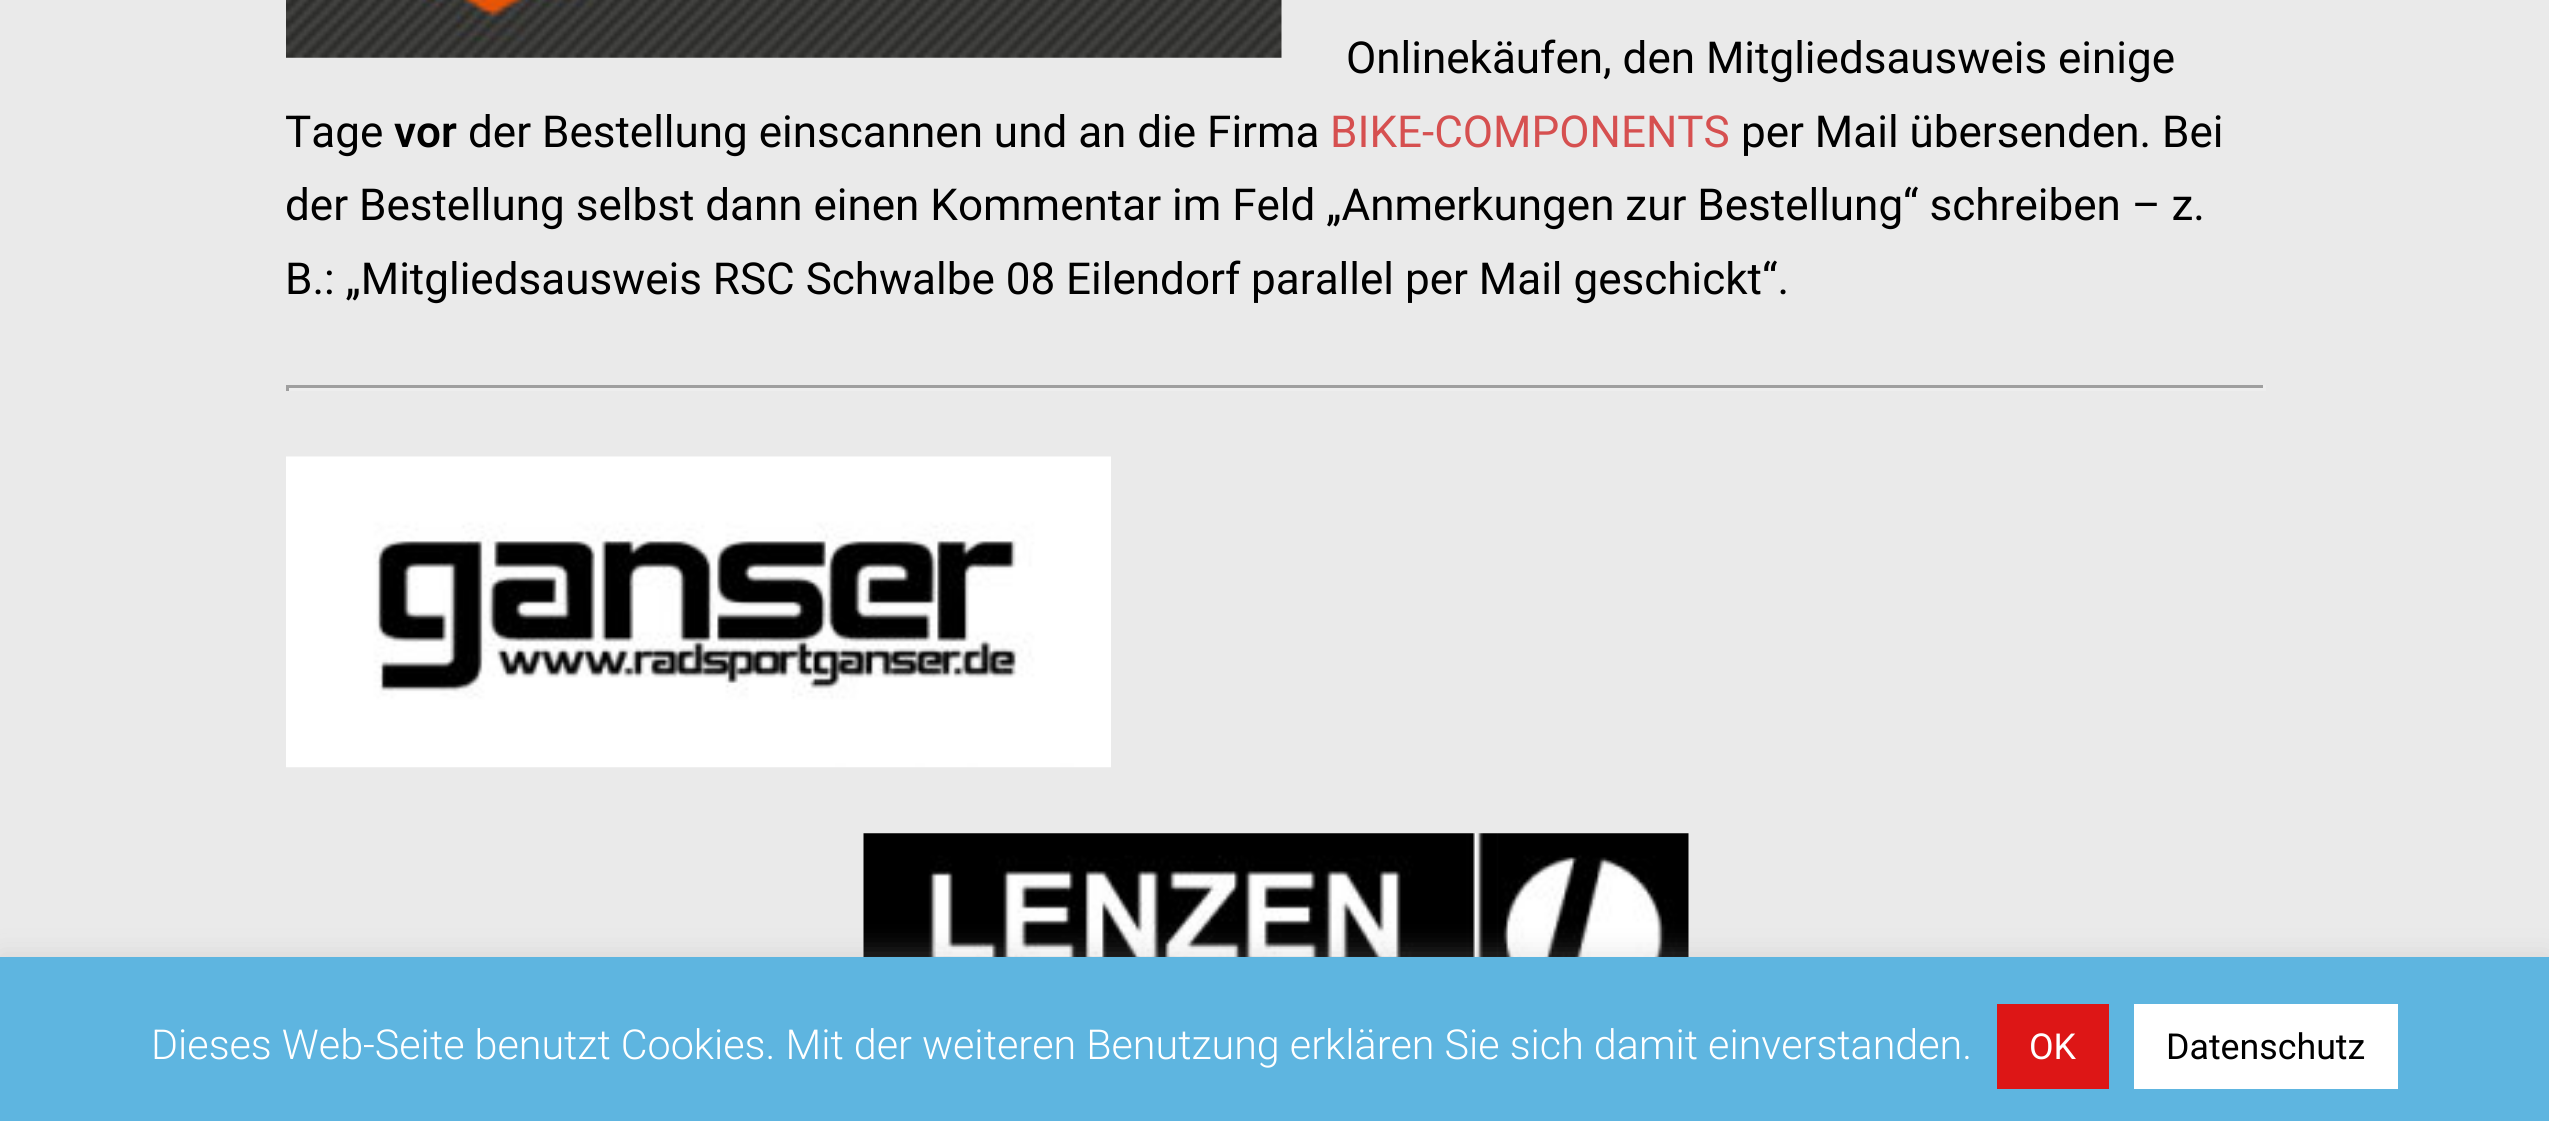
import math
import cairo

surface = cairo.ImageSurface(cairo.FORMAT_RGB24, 2549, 1121)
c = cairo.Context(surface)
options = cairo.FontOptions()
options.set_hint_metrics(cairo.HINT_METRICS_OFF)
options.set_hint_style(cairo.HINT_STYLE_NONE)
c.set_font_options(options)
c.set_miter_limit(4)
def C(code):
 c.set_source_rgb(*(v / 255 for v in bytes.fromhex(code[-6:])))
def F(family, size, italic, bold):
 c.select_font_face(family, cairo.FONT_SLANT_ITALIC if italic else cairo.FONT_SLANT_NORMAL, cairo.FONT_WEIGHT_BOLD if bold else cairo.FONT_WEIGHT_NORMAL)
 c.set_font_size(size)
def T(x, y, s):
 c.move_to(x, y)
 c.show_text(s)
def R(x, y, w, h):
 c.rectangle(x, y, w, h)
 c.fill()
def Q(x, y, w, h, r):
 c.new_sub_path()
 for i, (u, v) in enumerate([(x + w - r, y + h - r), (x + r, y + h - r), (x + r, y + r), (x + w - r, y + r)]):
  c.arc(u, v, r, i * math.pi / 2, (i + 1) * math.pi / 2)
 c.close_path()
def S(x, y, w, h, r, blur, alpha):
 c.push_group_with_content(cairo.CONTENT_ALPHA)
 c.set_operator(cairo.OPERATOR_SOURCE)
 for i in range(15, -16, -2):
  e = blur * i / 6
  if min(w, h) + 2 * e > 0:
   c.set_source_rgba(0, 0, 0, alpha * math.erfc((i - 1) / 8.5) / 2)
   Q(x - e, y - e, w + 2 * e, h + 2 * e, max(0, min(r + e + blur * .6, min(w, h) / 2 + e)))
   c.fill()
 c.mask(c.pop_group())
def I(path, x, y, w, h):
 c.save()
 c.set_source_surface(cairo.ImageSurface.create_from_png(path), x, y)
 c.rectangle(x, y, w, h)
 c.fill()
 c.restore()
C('eaeaea')
c.paint()
I('1.png',286,0,996,58)
F('Roboto',44,0,0)
C('000000')
T(1346,73,'Onlinekäufen, den Mitgliedsausweis einige')
T(285,147,'Tage')
F('Roboto SemiBold',44,0,0)
T(394,147,'vor')
F('Roboto',44,0,0)
T(468,147,'der Bestellung einscannen und an die Firma')
C('d65050')
T(1330,147,'BIKE-COMPONENTS')
C('000000')
T(1741,147,'per Mail übersenden. Bei')
T(285,220,'der Bestellung selbst dann einen Kommentar im Feld „Anmerkungen zur Bestellung“ schreiben – z.')
T(285,294,'B.: „Mitgliedsausweis RSC Schwalbe 08 Eilendorf parallel per Mail geschickt“.')
C('9f9f9f')
R(286,385,1980,3)
C('eeeeee')
R(2263,385,3,6)
R(286,388,1980,3)
C('9f9f9f')
R(286,385,3,6)
I('2.png',286,456,825,312)
I('3.png',863,833,826,124)
C('acabab')
S(0,954,2549,165,0,14,.3)
C('5eb5e0')
R(0,957,2549,164)
F('Roboto Light',41.25,0,0)
C('ffffff')
T(151,1059,'Dieses Web-Seite benutzt Cookies. Mit der weiteren Benutzung erklären Sie sich damit einverstanden.')
C('dd1616')
R(1997,1004,112,85)
F('Roboto',35.75,0,0)
C('ffffff')
T(2029,1059,'OK')
R(2134,1004,264,85)
C('000000')
T(2166,1059,'Datenschutz')
surface.write_to_png('o.png')
